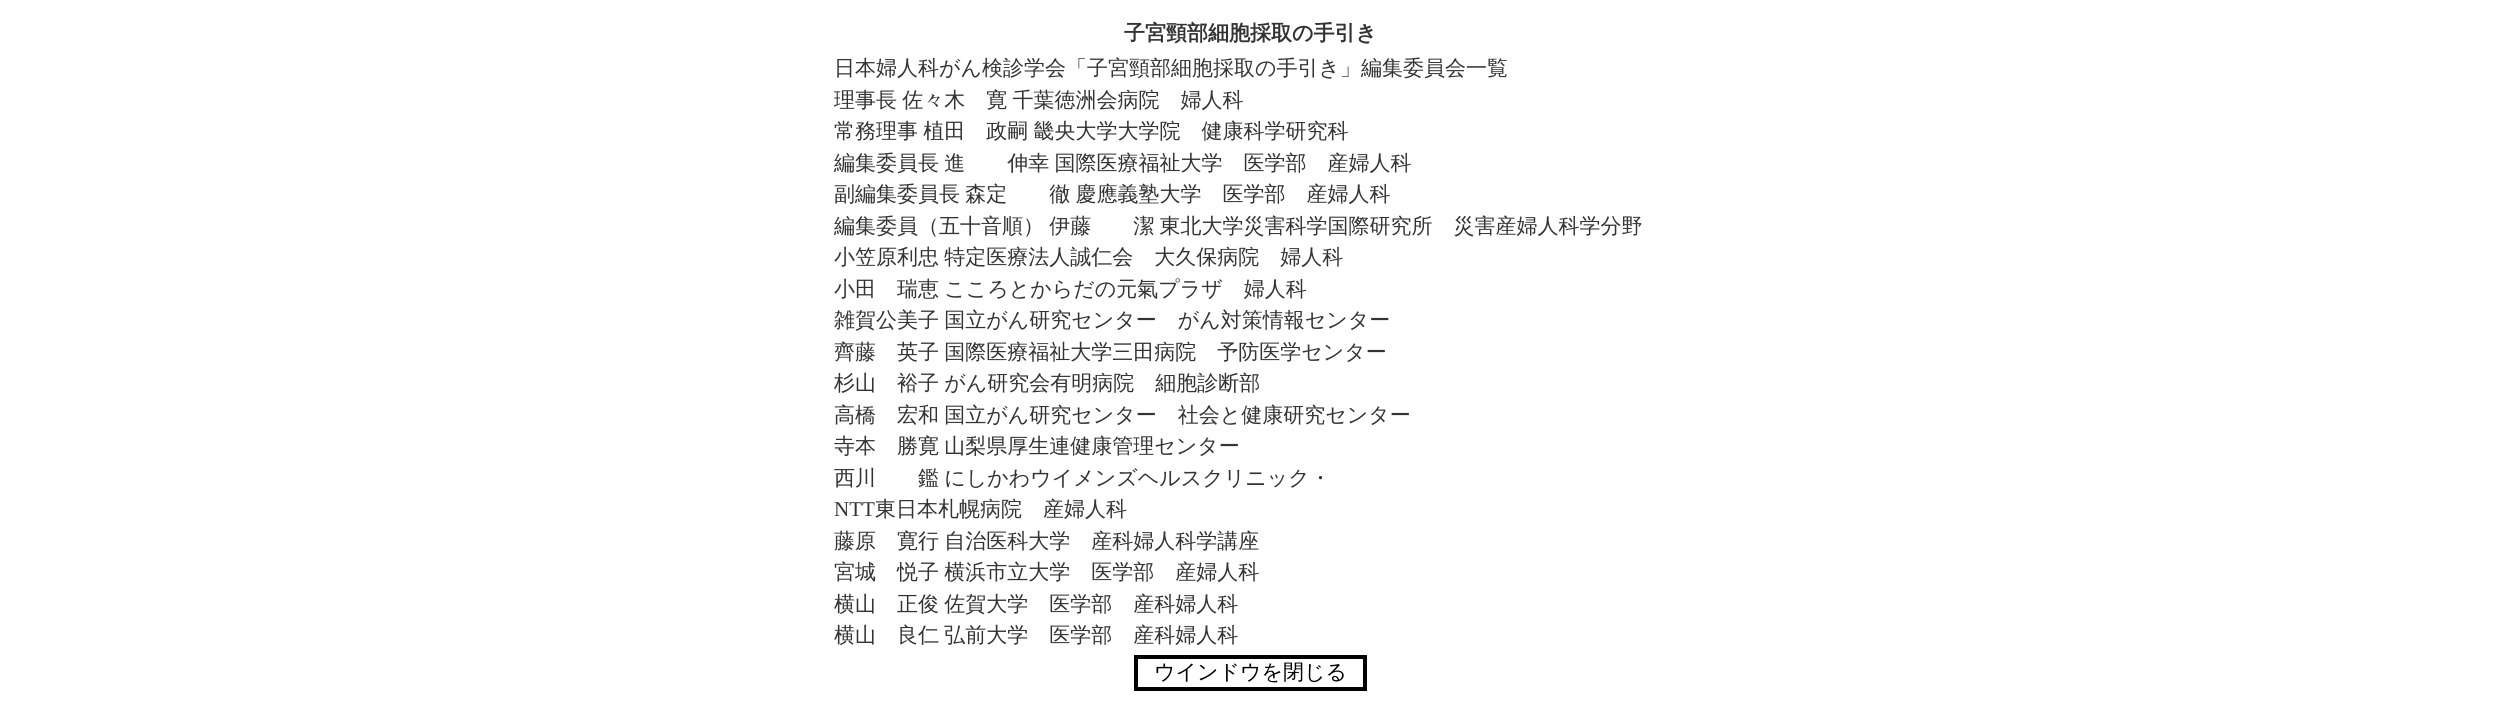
import math
import cairo

surface = cairo.ImageSurface(cairo.FORMAT_RGB24, 2500, 725)
c = cairo.Context(surface)
options = cairo.FontOptions()
options.set_hint_metrics(cairo.HINT_METRICS_OFF)
options.set_hint_style(cairo.HINT_STYLE_NONE)
c.set_font_options(options)
c.set_miter_limit(4)
def C(code):
 c.set_source_rgb(*(v / 255 for v in bytes.fromhex(code[-6:])))
def F(family, size, italic, bold):
 c.select_font_face(family, cairo.FONT_SLANT_ITALIC if italic else cairo.FONT_SLANT_NORMAL, cairo.FONT_WEIGHT_BOLD if bold else cairo.FONT_WEIGHT_NORMAL)
 c.set_font_size(size)
def T(x, y, s):
 c.move_to(x, y)
 c.show_text(s)
def L(x, y, s, letter, word):
 c.move_to(x, y)
 for ch in s:
  c.show_text(ch)
  c.rel_move_to(letter + word * (ch == ' '), 0)
C('ffffff')
c.paint()
F('WenQuanYi Zen Hei',21,0,1)
C('333333')
T(1124,40,'子宮頸部細胞採取の手引き')
F('WenQuanYi Zen Hei Medium',21,0,0)
T(834,75,'日本婦人科がん検診学会「子宮頸部細胞採取の手引き」編集委員会一覧')
L(834,107,'理事長 佐々木　寛 千葉徳洲会病院　婦人科',0,-1)
L(834,138,'常務理事 植田　政嗣 畿央大学大学院　健康科学研究科',0,-1)
L(834,170,'編集委員長 進　　伸幸 国際医療福祉大学　医学部　産婦人科',0,-1)
L(834,201,'副編集委員長 森定　　徹 慶應義塾大学　医学部　産婦人科',0,-1)
L(834,233,'編集委員（五十音順） 伊藤　　潔 東北大学災害科学国際研究所　災害産婦人科学分野',0,-1)
L(834,264,'小笠原利忠 特定医療法人誠仁会　大久保病院　婦人科',0,-1)
L(834,296,'小田　瑞恵 こころとからだの元氣プラザ　婦人科',0,-1)
L(834,327,'雑賀公美子 国立がん研究センター　がん対策情報センター',0,-1)
L(834,359,'齊藤　英子 国際医療福祉大学三田病院　予防医学センター',0,-1)
L(834,390,'杉山　裕子 がん研究会有明病院　細胞診断部',0,-1)
L(834,422,'高橋　宏和 国立がん研究センター　社会と健康研究センター',0,-1)
L(834,453,'寺本　勝寛 山梨県厚生連健康管理センター',0,-1)
L(834,485,'西川　　鑑 にしかわウイメンズヘルスクリニック・',0,-1)
F('Liberation Serif',21,0,0)
T(834,516,'NTT')
F('WenQuanYi Zen Hei Medium',21,0,0)
T(875,516,'東日本札幌病院　産婦人科')
L(834,548,'藤原　寛行 自治医科大学　産科婦人科学講座',0,-1)
L(834,579,'宮城　悦子 横浜市立大学　医学部　産婦人科',0,-1)
L(834,611,'横山　正俊 佐賀大学　医学部　産科婦人科',0,-1)
L(834,642,'横山　良仁 弘前大学　医学部　産科婦人科',0,-1)
c.rectangle(1136,657,229,32)
C('000000')
c.set_line_width(4)
c.stroke()
T(1154,679,'ウインドウを閉じる')
surface.write_to_png('o.png')
